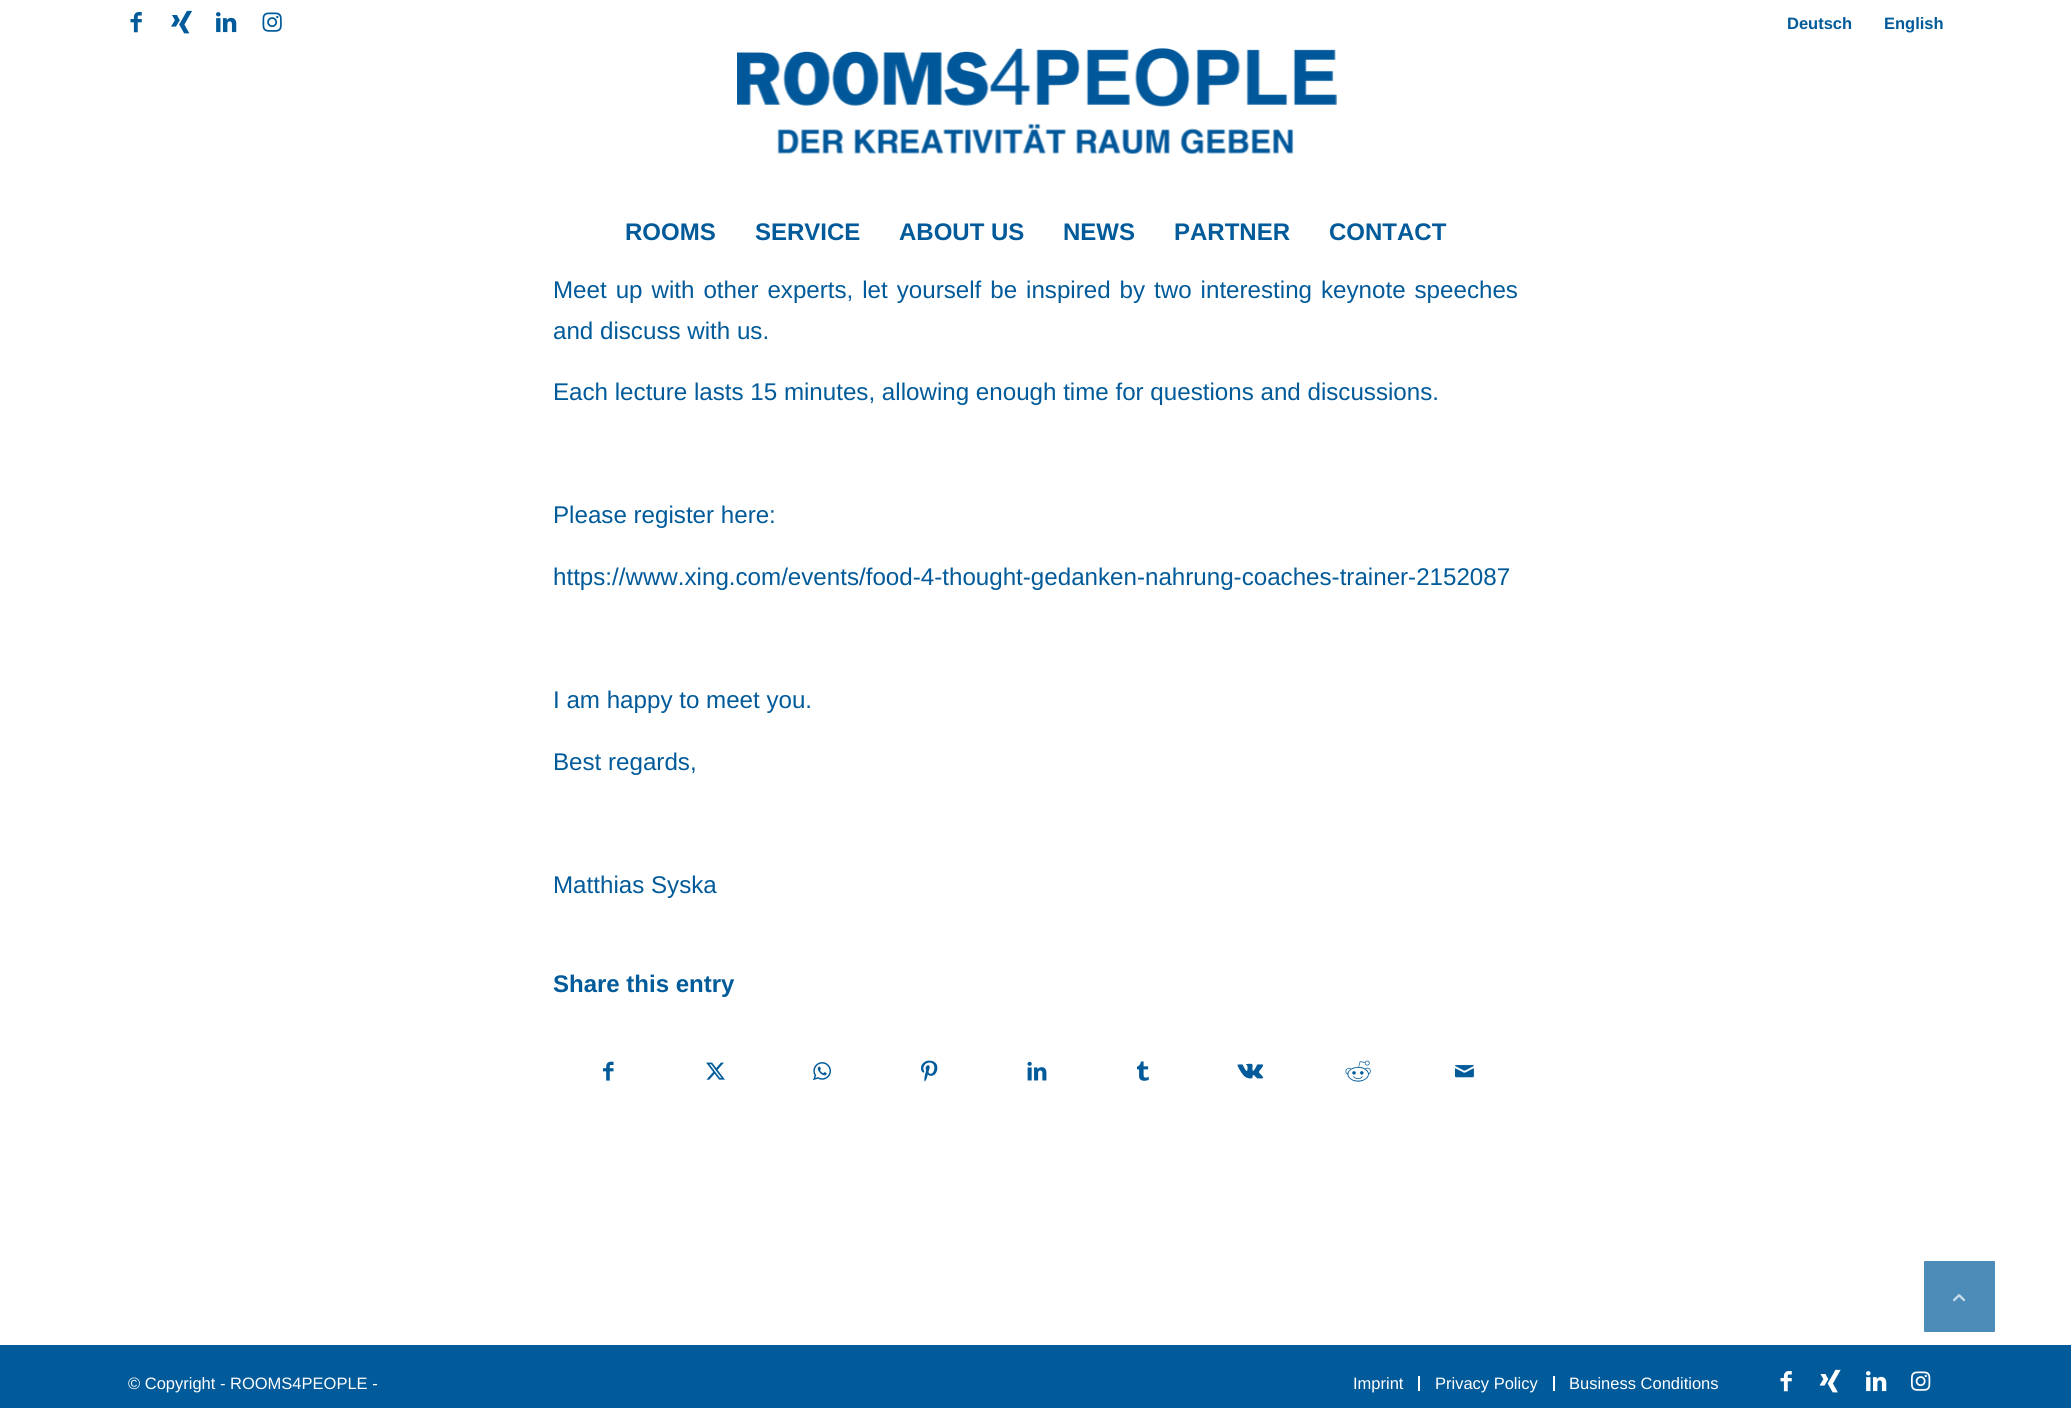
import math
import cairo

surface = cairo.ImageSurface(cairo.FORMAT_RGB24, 2071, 1408)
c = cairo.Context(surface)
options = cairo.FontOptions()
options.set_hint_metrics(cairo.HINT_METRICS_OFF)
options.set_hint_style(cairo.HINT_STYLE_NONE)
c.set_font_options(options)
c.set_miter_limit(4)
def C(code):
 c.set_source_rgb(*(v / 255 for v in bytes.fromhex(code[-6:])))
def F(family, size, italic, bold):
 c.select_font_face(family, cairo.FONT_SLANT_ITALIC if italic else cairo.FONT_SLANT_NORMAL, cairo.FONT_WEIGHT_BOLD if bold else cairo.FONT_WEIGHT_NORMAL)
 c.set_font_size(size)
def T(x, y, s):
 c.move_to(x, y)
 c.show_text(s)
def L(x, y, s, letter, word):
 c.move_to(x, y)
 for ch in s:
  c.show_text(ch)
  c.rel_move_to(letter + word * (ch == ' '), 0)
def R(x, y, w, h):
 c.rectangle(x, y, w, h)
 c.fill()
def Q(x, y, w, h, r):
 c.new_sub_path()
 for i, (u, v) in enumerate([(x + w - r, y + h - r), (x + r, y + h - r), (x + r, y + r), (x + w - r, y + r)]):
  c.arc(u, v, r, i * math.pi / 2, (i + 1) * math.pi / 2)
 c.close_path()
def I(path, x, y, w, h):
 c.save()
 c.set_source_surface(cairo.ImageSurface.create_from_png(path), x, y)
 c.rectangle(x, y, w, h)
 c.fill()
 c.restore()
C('ffffff')
c.paint()
I('1.png',130,12,12,21)
I('2.png',171,10,21,24)
I('3.png',216,12,21,21)
I('4.png',262,12,20,20)
F('Liberation Sans',16.5,0,1)
C('015a99')
T(1787,29,'Deutsch')
T(1884,29,'English')
I('5.png',737,48,600,106)
F('Liberation Sans',24,0,1)
T(625,240,'ROOMS')
T(755,240,'SERVICE')
T(899,240,'ABOUT US')
T(1063,240,'NEWS')
T(1174,240,'PARTNER')
T(1329,240,'CONTACT')
F('Liberation Sans',24.15,0,0)
L(553,298,'Meet up with other experts, let yourself be inspired by two interesting keynote speeches',0,2.25)
T(553,339,'and discuss with us.')
T(553,400,'Each lecture lasts 15 minutes, allowing enough time for questions and discussions.')
T(553,523,'Please register here:')
T(553,585,'https://www.xing.com/events/food-4-thought-gedanken-nahrung-coaches-trainer-2152087')
T(553,708,'I am happy to meet you.')
T(553,770,'Best regards,')
T(553,893,'Matthias Syska')
F('Liberation Sans',24,0,1)
T(553,992,'Share this entry')
I('6.png',603,1061,11,20)
I('7.png',706,1062,19,18)
I('8.png',813,1062,18,19)
I('9.png',921,1060,17,22)
I('10.png',1027,1061,20,20)
I('11.png',1137,1061,12,20)
I('12.png',1237,1063,27,16)
I('13.png',1345,1060,26,22)
I('14.png',1455,1065,19,13)
R(0,1345,2071,63)
F('Liberation Sans',16.5,0,0)
C('ffffff')
T(128,1389,'© Copyright - ROOMS4PEOPLE -')
T(1353,1389,'Imprint')
R(1418,1376,2,15)
T(1435,1389,'Privacy Policy')
R(1553,1376,2,15)
T(1569,1389,'Business Conditions')
I('15.png',1780,1371,12,21)
I('16.png',1819,1369,22,24)
I('17.png',1866,1371,21,21)
I('18.png',1911,1371,20,20)
C('4d8cb8')
Q(1923,1260,73,73,2)
c.fill_preserve()
C('ffffff')
c.stroke()
I('19.png',1953,1294,13,8)
surface.write_to_png('o.png')
